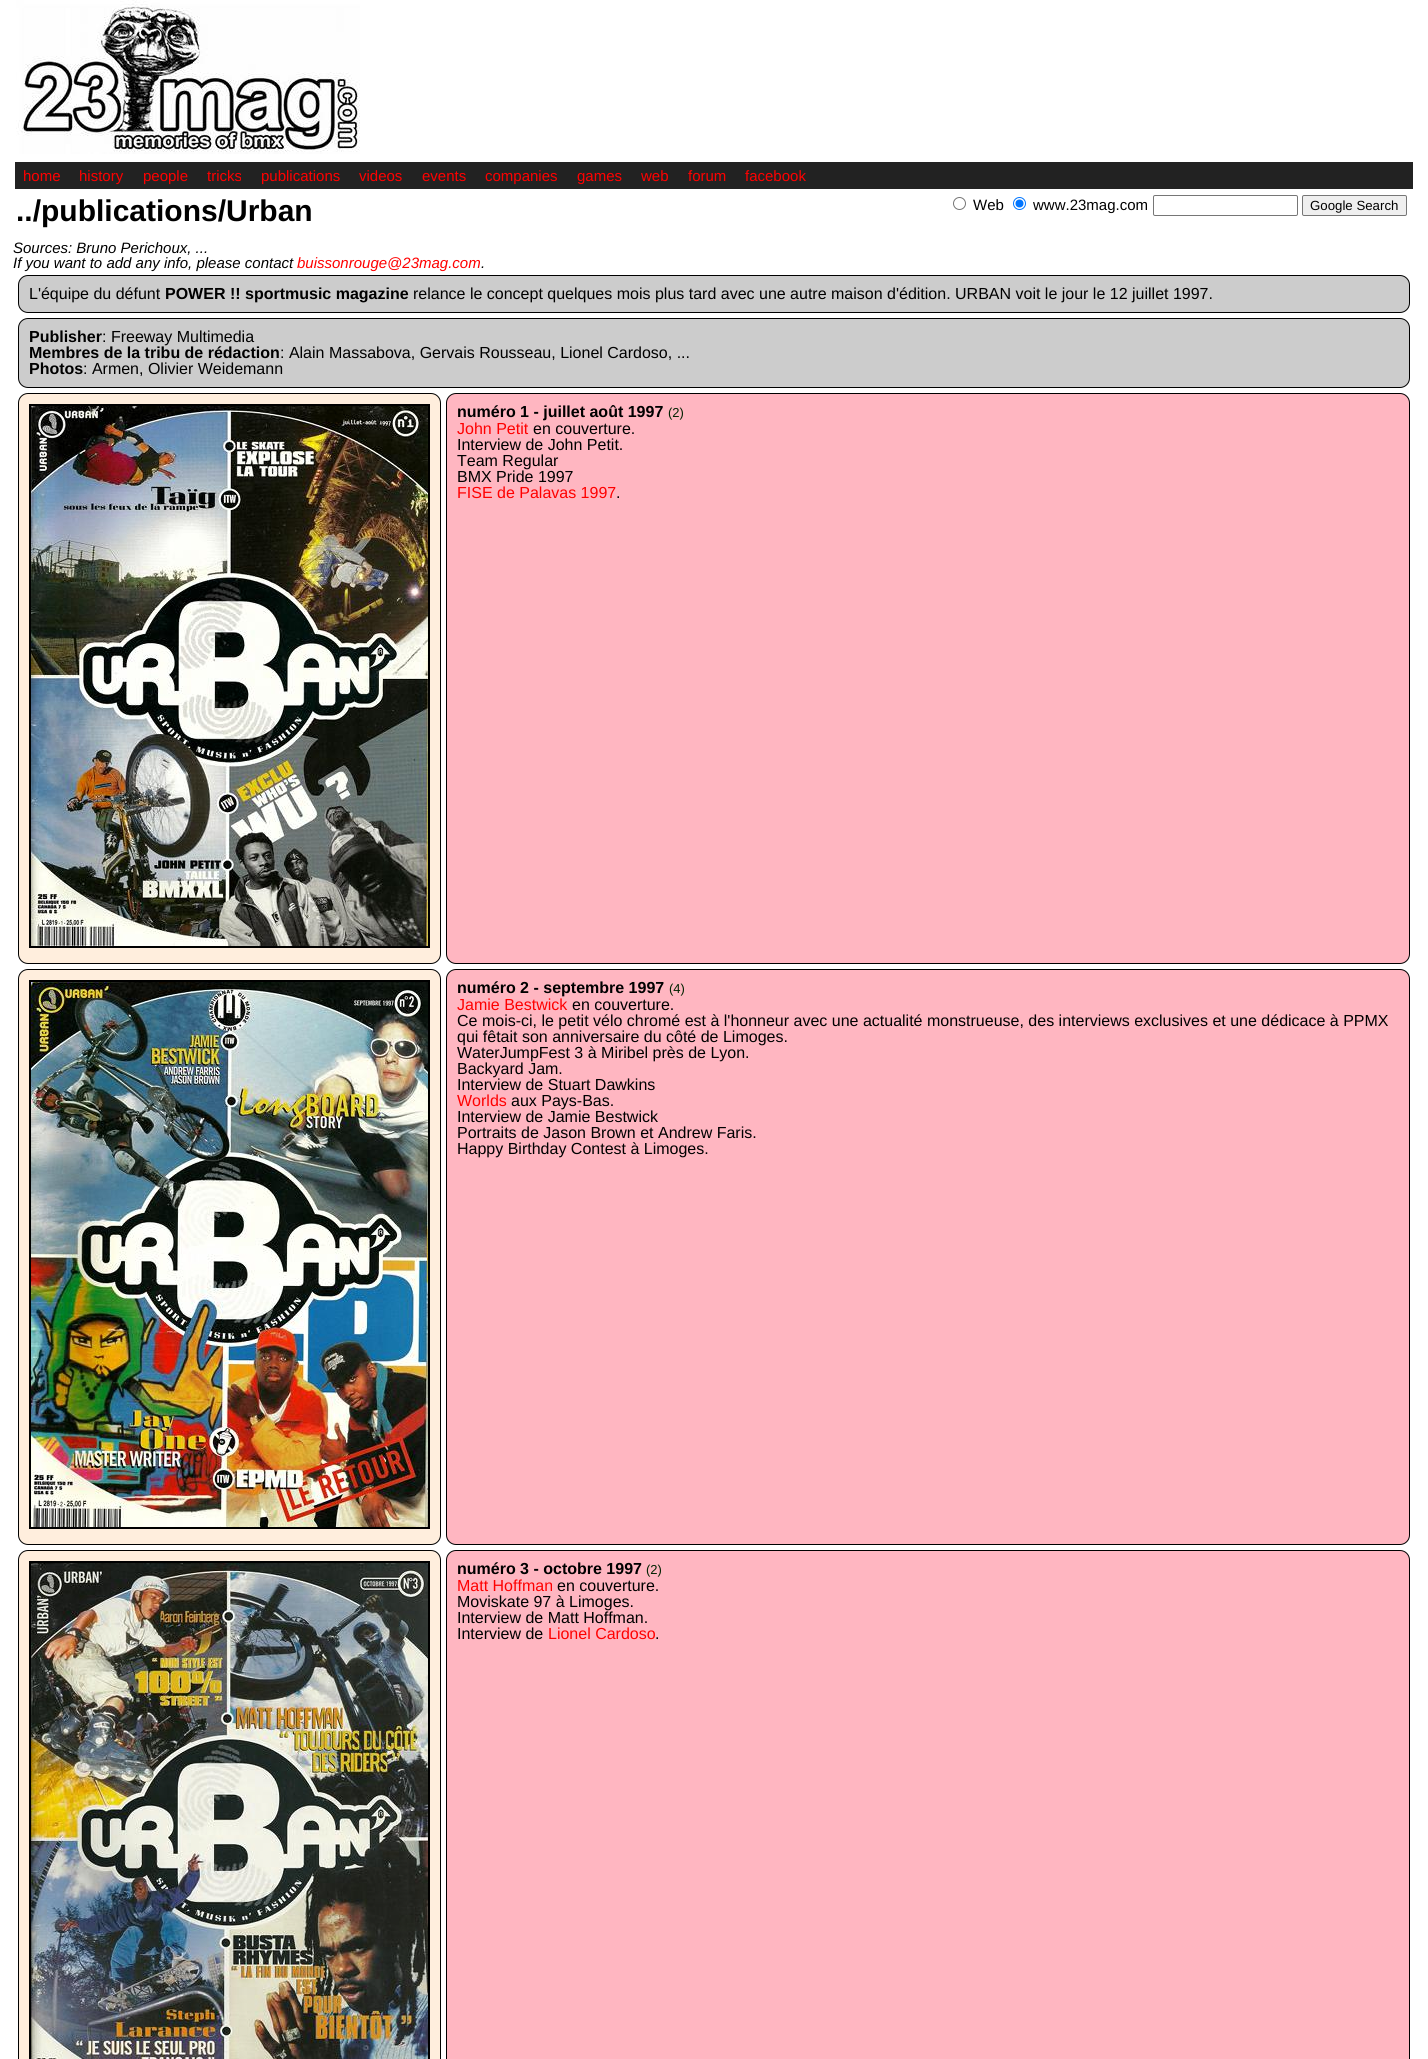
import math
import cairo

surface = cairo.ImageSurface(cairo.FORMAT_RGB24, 1428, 2059)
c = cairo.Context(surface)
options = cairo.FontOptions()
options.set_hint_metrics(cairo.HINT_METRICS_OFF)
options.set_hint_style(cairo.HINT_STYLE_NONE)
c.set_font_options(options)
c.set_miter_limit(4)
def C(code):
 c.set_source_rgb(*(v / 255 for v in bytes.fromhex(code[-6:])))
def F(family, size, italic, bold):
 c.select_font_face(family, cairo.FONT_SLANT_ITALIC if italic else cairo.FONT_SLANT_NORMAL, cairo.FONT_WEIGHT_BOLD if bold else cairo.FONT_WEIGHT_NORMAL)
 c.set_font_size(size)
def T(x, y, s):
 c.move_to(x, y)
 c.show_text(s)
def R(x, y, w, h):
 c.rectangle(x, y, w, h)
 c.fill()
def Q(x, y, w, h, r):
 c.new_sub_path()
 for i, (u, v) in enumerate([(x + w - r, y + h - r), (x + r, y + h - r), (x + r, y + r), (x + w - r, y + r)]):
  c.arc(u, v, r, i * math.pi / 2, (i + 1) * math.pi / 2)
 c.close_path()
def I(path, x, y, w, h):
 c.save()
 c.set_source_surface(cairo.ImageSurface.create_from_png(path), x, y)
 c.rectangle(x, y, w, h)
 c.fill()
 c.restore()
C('ffffff')
c.paint()
I('1.png',16,0,344,154)
C('222222')
R(15,162,1398,27)
F('Liberation Sans',15,0,0)
C('ff0000')
T(23,181,'home')
T(79,181,'history')
T(143,181,'people')
T(207,181,'tricks')
T(261,181,'publications')
T(359,181,'videos')
T(422,181,'events')
T(485,181,'companies')
T(577,181,'games')
T(641,181,'web')
T(688,181,'forum')
T(745,181,'facebook')
F('Liberation Sans',30,0,1)
C('000000')
T(16,221,'../publications/Urban')
c.new_path()
c.arc(959.5,203.5,6,0,2 * math.pi)
C('767676')
c.set_line_width(1)
c.stroke()
F('Liberation Sans',15,0,0)
C('000000')
T(973,210,'Web')
c.new_path()
c.arc(1019.5,203.5,6,0,2 * math.pi)
C('0075ff')
c.stroke()
c.arc(1019.5,203.5,4,0,2 * math.pi)
c.fill()
C('000000')
T(1033,210,'www.23mag.com')
Q(1153.5,195.5,144,20,1.5)
C('767676')
c.stroke()
C('efefef')
Q(1302.5,195.5,104,20,1.5)
c.fill_preserve()
C('767676')
c.stroke()
F('Liberation Sans',13.25,0,0)
C('000000')
T(1310,210,'Google Search')
F('Liberation Sans',15,1,0)
T(13,253,'Sources: Bruno Perichoux, ...')
T(13,268,'If you want to add any info, please contact')
C('ff0000')
T(297,268,'buissonrouge@23mag.com')
C('000000')
T(481,268,'.')
C('cccccc')
Q(18.5,275.5,1391,37,9.5)
c.fill_preserve()
C('000000')
c.stroke()
F('Liberation Sans',16,0,0)
T(29,299,'L\'équipe du défunt')
F('Liberation Sans',16,0,1)
T(165,299,'POWER !! sportmusic magazine')
F('Liberation Sans',16,0,0)
T(413,299,'relance le concept quelques mois plus tard avec une autre maison d\'édition. URBAN voit le jour le 12 juillet 1997.')
C('cccccc')
Q(18.5,318.5,1391,69,9.5)
c.fill_preserve()
C('000000')
c.stroke()
F('Liberation Sans',16,0,1)
T(29,342,'Publisher')
F('Liberation Sans',16,0,0)
T(102,342,': Freeway Multimedia')
F('Liberation Sans',16,0,1)
T(29,358,'Membres de la tribu de rédaction')
F('Liberation Sans',16,0,0)
T(280,358,': Alain Massabova, Gervais Rousseau, Lionel Cardoso, ...')
F('Liberation Sans',16,0,1)
T(29,374,'Photos')
F('Liberation Sans',16,0,0)
T(83,374,': Armen, Olivier Weidemann')
C('ffeedd')
Q(18.5,393.5,422,570,9.5)
c.fill_preserve()
C('000000')
c.stroke()
c.rectangle(30,405,399,542)
c.set_line_width(2)
c.stroke()
I('2.png',31,406,397,540)
C('ffb6c1')
Q(446.5,393.5,963,570,9.5)
c.fill_preserve()
C('000000')
c.set_line_width(1)
c.stroke()
F('Liberation Sans',16,0,1)
T(457,417,'numéro 1 - juillet août 1997')
F('Liberation Sans',13,0,0)
C('002200')
T(668,417,'(2)')
F('Liberation Sans',16,0,0)
C('ff0000')
T(457,434,'John Petit')
C('000000')
T(533,434,'en couverture.')
T(457,450,'Interview de John Petit.')
T(457,466,'Team Regular')
T(457,482,'BMX Pride 1997')
C('ff0000')
T(457,498,'FISE de Palavas 1997')
C('000000')
T(616,498,'.')
C('ffeedd')
Q(18.5,969.5,422,575,9.5)
c.fill_preserve()
C('000000')
c.stroke()
c.rectangle(30,981,399,547)
c.set_line_width(2)
c.stroke()
I('3.png',31,982,397,545)
C('ffb6c1')
Q(446.5,969.5,963,575,9.5)
c.fill_preserve()
C('000000')
c.set_line_width(1)
c.stroke()
F('Liberation Sans',16,0,1)
T(457,993,'numéro 2 - septembre 1997')
F('Liberation Sans',13,0,0)
C('002200')
T(669,993,'(4)')
F('Liberation Sans',16,0,0)
C('ff0000')
T(457,1010,'Jamie Bestwick')
C('000000')
T(572,1010,'en couverture.')
T(457,1026,'Ce mois-ci, le petit vélo chromé est à l\'honneur avec une actualité monstrueuse, des interviews exclusives et une dédicace à PPMX')
T(457,1042,'qui fêtait son anniversaire du côté de Limoges.')
T(457,1058,'WaterJumpFest 3 à Miribel près de Lyon.')
T(457,1074,'Backyard Jam.')
T(457,1090,'Interview de Stuart Dawkins')
C('ff0000')
T(457,1106,'Worlds')
C('000000')
T(511,1106,'aux Pays-Bas.')
T(457,1122,'Interview de Jamie Bestwick')
T(457,1138,'Portraits de Jason Brown et Andrew Faris.')
T(457,1154,'Happy Birthday Contest à Limoges.')
C('ffeedd')
Q(18.5,1550.5,422,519,9.5)
c.fill_preserve()
C('000000')
c.stroke()
c.rectangle(30,1562,399,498)
c.set_line_width(2)
c.stroke()
I('4.png',31,1563,397,496)
C('ffb6c1')
Q(446.5,1550.5,963,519,9.5)
c.fill_preserve()
C('000000')
c.set_line_width(1)
c.stroke()
F('Liberation Sans',16,0,1)
T(457,1574,'numéro 3 - octobre 1997')
F('Liberation Sans',13,0,0)
C('002200')
T(646,1574,'(2)')
F('Liberation Sans',16,0,0)
C('ff0000')
T(457,1591,'Matt Hoffman')
C('000000')
T(557,1591,'en couverture.')
T(457,1607,'Moviskate 97 à Limoges.')
T(457,1623,'Interview de Matt Hoffman.')
T(457,1639,'Interview de')
C('ff0000')
T(548,1639,'Lionel Cardoso')
C('000000')
T(655,1639,'.')
surface.write_to_png('o.png')
